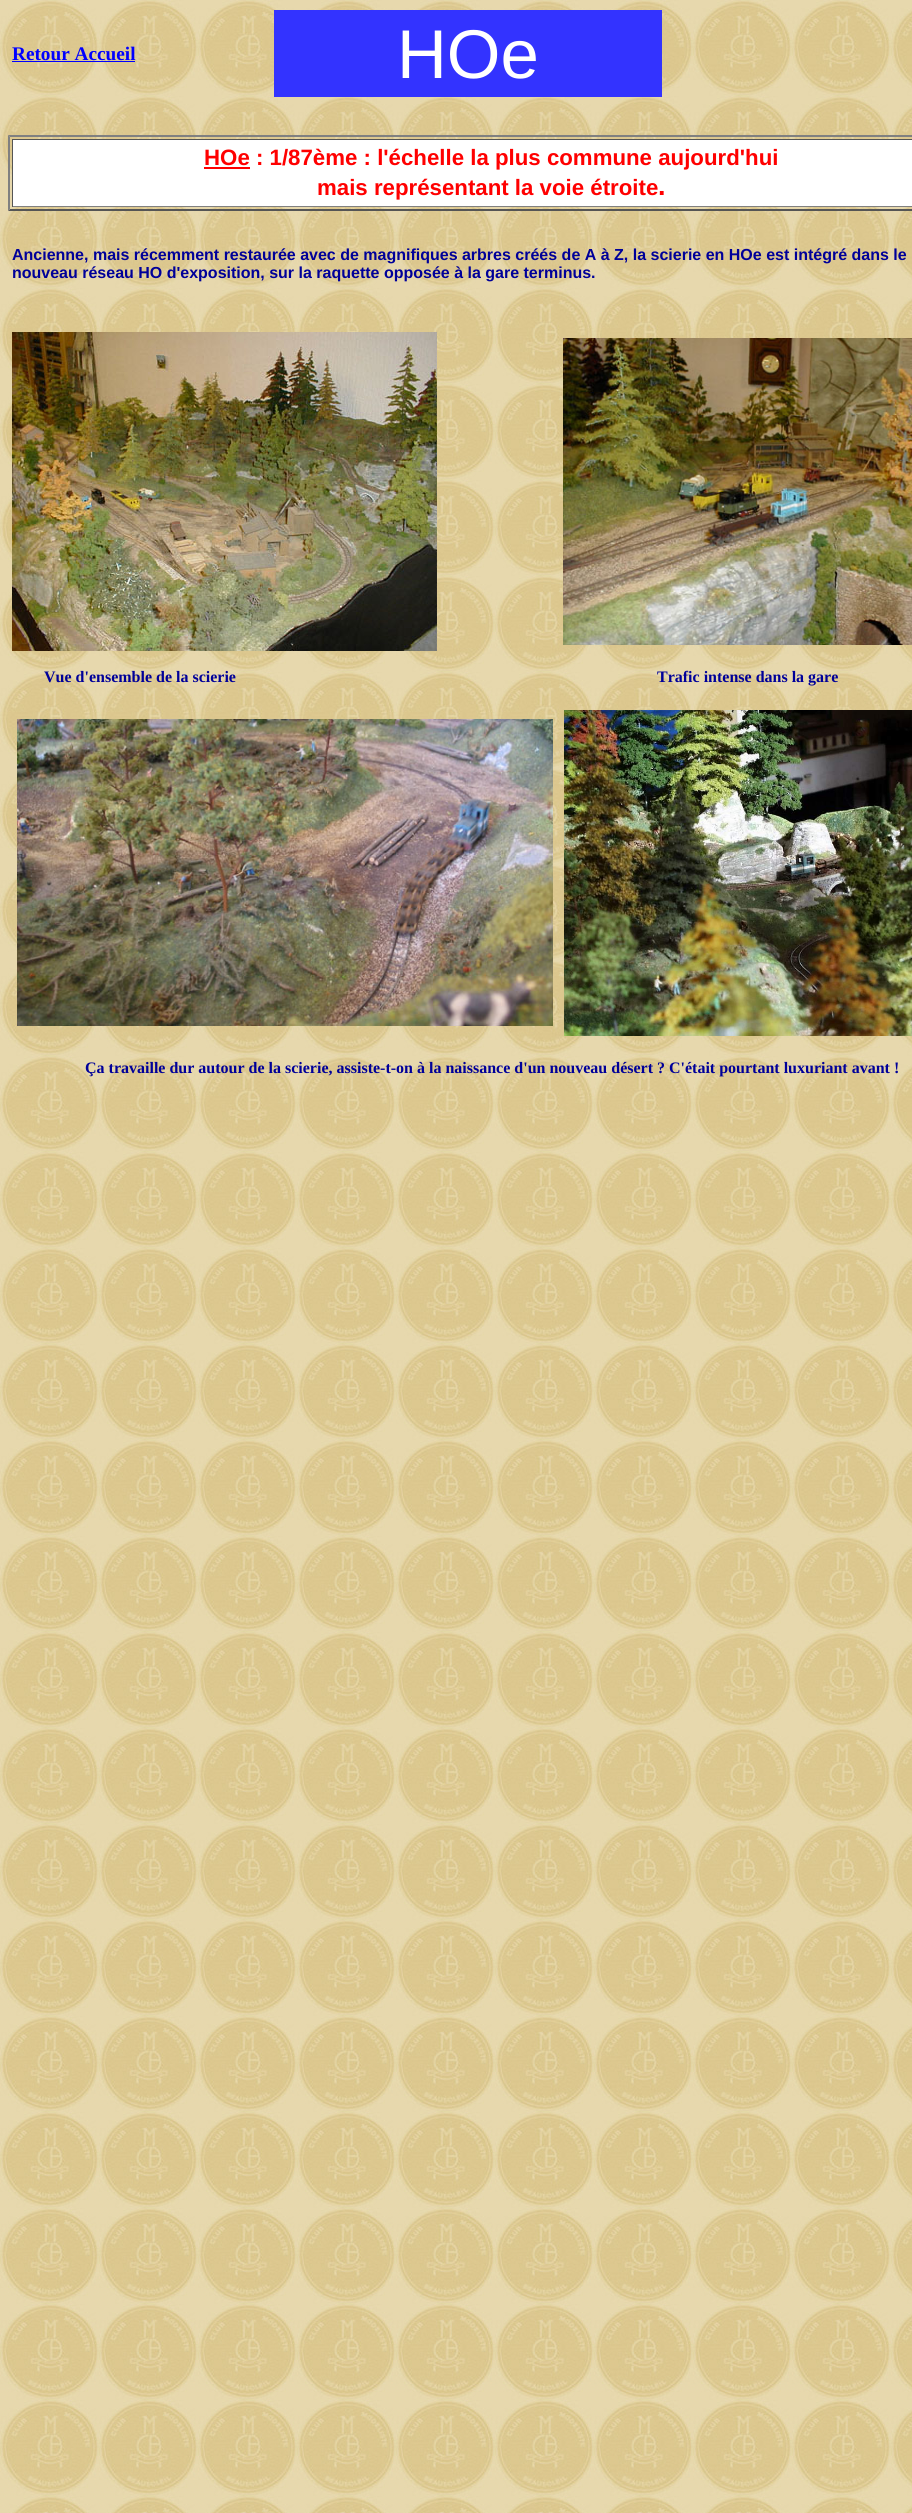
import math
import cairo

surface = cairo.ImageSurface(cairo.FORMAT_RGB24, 912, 2513)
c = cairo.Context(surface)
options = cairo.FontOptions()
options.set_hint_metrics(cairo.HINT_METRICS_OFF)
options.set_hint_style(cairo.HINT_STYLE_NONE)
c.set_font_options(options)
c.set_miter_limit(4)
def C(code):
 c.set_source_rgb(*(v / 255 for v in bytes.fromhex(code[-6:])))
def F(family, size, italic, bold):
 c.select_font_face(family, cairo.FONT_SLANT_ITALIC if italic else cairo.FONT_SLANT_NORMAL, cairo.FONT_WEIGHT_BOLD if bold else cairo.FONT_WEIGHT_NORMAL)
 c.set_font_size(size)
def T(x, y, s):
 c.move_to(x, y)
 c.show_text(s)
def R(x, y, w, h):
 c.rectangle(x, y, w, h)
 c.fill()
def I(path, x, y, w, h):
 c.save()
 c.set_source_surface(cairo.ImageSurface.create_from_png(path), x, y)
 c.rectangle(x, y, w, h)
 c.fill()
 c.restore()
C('ffffff')
c.paint()
I('1.png',0,0,912,2513)
F('Liberation Serif',19.25,0,1)
C('0000ff')
T(12,60,'Retour Accueil')
R(12,61,123,1)
C('3333ff')
R(274,10,388,87)
F('Liberation Sans',69,0,0)
C('ffffff')
T(397,78,'HOe')
C('808080')
c.new_path()
c.move_to(8,135)
c.line_to(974,135)
c.line_to(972,137)
c.line_to(10,137)
c.close_path()
c.fill()
C('555555')
c.new_path()
c.move_to(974,211)
c.line_to(8,211)
c.line_to(10,209)
c.line_to(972,209)
c.close_path()
c.fill()
C('808080')
c.new_path()
c.move_to(8,211)
c.line_to(8,135)
c.line_to(10,137)
c.line_to(10,209)
c.close_path()
c.fill()
C('ffffff')
R(13,140,899,66)
C('555555')
R(12,139,900,1)
C('808080')
R(12,206,900,1)
C('555555')
R(12,139,1,68)
C('ff0000')
R(204,167,46,2)
F('Liberation Sans',22.25,0,1)
T(204,165,'HOe : 1/87ème : l\'échelle la plus commune aujourd\'hui')
T(317,195,'mais représentant la voie étroite')
F('Liberation Sans',27,0,1)
T(658,195,'.')
F('Liberation Sans',16,0,1)
C('000099')
T(12,260,'Ancienne, mais récemment restaurée avec de magnifiques arbres créés de A à Z, la scierie en HOe est intégré dans le')
T(12,278,'nouveau réseau HO d\'exposition, sur la raquette opposée à la gare terminus.')
I('2.png',12,332,425,319)
I('3.png',563,338,349,307)
F('Liberation Serif',16,0,1)
T(44,682,'Vue d\'ensemble de la scierie')
T(657,682,'Trafic intense dans la gare')
I('4.png',17,719,536,307)
I('5.png',564,710,348,326)
T(85,1073,'Ça travaille dur autour de la scierie, assiste-t-on à la naissance d\'un nouveau désert ? C\'était pourtant luxuriant avant !')
surface.write_to_png('o.png')
